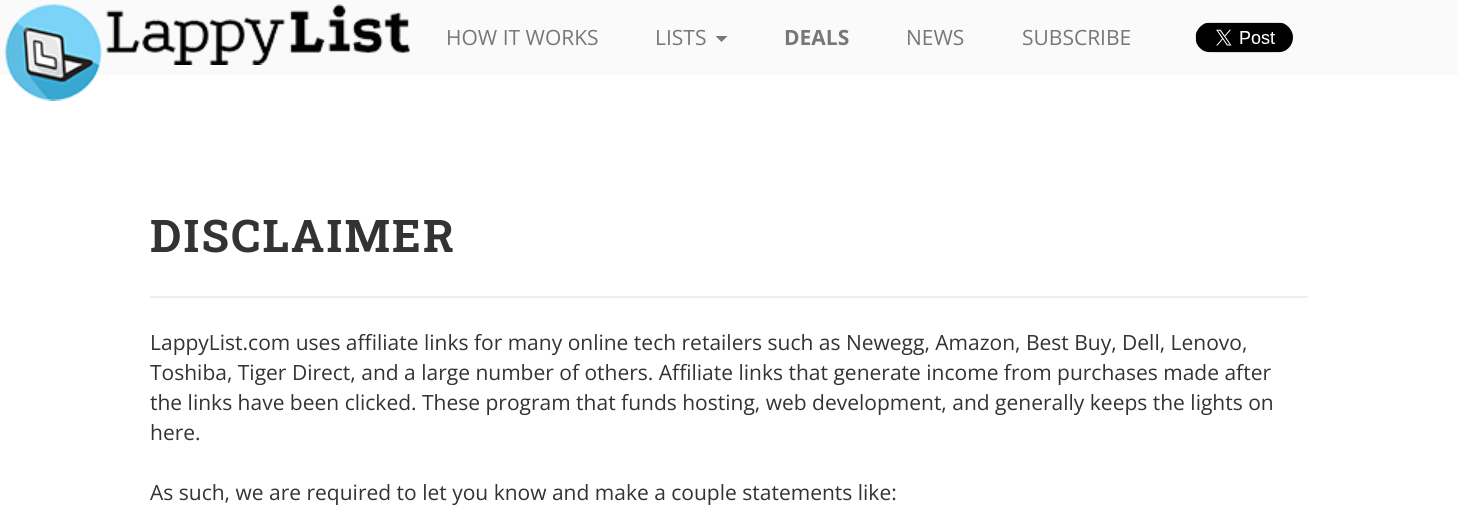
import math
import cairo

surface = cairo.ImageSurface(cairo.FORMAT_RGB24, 1458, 529)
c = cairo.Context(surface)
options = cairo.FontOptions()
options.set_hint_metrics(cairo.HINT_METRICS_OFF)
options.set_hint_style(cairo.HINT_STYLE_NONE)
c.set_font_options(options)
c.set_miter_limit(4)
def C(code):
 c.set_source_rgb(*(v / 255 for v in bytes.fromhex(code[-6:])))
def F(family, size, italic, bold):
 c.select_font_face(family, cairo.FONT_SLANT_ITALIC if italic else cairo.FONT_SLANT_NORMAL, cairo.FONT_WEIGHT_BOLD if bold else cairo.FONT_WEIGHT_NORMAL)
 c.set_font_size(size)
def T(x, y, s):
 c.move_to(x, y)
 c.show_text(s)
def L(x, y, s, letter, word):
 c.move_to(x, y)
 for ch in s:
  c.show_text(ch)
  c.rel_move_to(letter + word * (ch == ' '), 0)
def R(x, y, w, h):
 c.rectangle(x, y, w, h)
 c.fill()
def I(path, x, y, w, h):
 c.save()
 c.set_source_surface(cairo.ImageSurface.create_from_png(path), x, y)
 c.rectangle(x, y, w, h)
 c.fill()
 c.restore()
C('ffffff')
c.paint()
C('fafafa')
R(0,0,1458,75)
I('1.png',4,4,98,97)
I('2.png',106,4,304,61)
F('Open Sans',21,0,0)
C('777777')
T(446,45,'HOW IT WORKS')
T(655,45,'LISTS')
c.new_path()
c.move_to(715.5,36)
c.line_to(727.5,36)
c.line_to(721.5,42)
c.close_path()
c.fill()
F('Open Sans',21,0,1)
T(784,45,'DEALS')
F('Open Sans',21,0,0)
T(906,45,'NEWS')
T(1022,45,'SUBSCRIBE')
I('3.png',1195,22,98,31)
C('eeeeee')
R(150,296,1158,2)
F('Roboto Slab',45,0,1)
C('333333')
L(150,252,'DISCLAIMER',2.25,0)
F('Open Sans',21,0,0)
T(150,350,'LappyList.com uses affiliate links for many online tech retailers such as Newegg, Amazon, Best Buy, Dell, Lenovo,')
T(150,380,'Toshiba, Tiger Direct, and a large number of others. Affiliate links that generate income from purchases made after')
T(150,410,'the links have been clicked. These program that funds hosting, web development, and generally keeps the lights on')
T(150,440,'here.')
T(150,500,'As such, we are required to let you know and make a couple statements like:')
surface.write_to_png('o.png')
